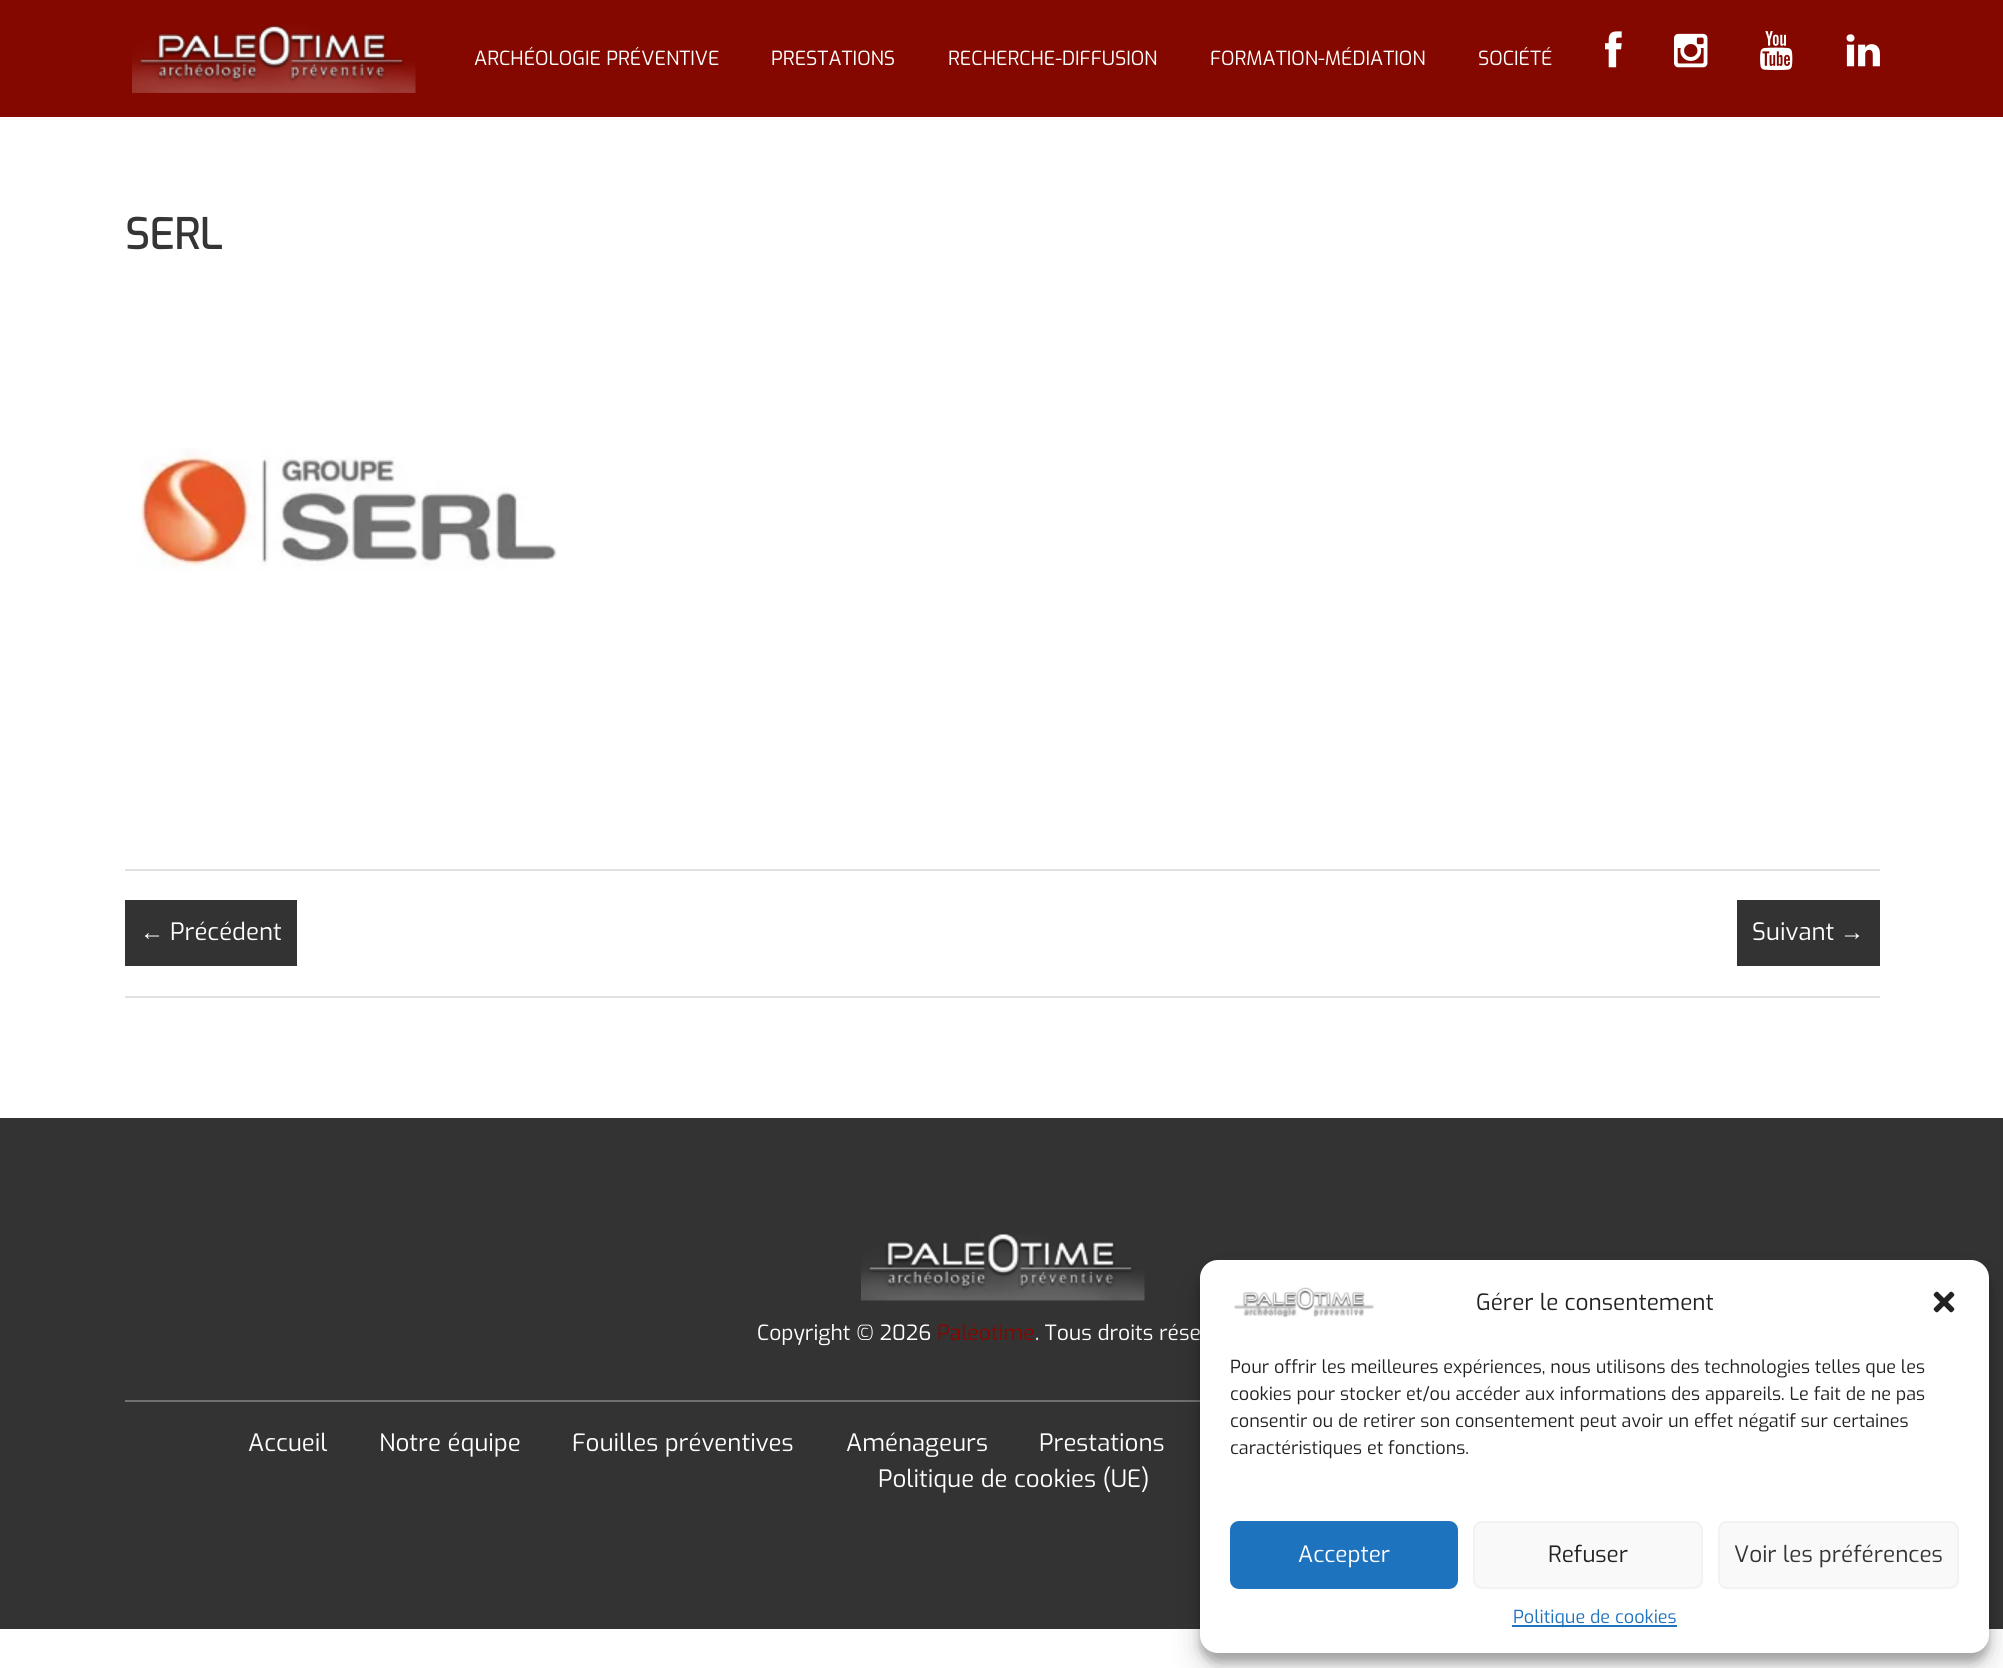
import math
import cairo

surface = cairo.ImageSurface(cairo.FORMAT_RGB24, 2003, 1668)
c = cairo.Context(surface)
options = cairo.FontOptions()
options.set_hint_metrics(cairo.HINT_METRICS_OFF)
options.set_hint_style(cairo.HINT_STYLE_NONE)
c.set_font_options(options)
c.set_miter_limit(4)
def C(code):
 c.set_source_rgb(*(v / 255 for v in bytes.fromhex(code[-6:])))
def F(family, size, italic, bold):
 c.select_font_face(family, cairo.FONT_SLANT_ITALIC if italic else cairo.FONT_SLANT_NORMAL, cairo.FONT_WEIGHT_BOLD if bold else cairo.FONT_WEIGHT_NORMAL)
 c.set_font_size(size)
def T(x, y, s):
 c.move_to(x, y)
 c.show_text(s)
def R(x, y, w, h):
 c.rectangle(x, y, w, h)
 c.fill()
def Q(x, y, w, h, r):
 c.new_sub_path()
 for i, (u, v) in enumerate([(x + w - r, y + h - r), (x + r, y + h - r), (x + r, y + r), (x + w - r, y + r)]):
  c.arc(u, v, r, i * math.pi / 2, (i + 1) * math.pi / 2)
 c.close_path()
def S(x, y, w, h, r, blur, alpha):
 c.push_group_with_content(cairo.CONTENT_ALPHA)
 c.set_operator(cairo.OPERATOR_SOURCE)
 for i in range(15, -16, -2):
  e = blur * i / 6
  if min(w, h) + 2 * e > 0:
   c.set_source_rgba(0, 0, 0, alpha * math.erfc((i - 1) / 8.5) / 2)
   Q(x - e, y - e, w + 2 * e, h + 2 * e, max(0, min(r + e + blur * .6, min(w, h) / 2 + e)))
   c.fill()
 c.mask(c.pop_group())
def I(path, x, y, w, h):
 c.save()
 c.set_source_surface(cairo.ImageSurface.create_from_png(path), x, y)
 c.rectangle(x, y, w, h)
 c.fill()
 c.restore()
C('ffffff')
c.paint()
C('840800')
R(0,0,2003,117)
I('1.png',132,24,284,69)
F('Exo',19.5,0,0)
C('ffffff')
T(474,65,'ARCHÉOLOGIE PRÉVENTIVE')
T(771,65,'PRESTATIONS')
T(948,65,'RECHERCHE-DIFFUSION')
T(1210,65,'FORMATION-MÉDIATION')
T(1478,65,'SOCIÉTÉ')
I('2.png',1605,31,17,37)
I('3.png',1674,33,34,35)
I('4.png',1760,31,33,40)
I('5.png',1846,34,34,33)
C('e1e1e1')
R(125,869,1755,2)
F('Exo',42,0,1)
C('353535')
T(125,249,'SERL')
I('6.png',137,448,420,123)
C('e1e1e1')
R(125,996,1755,2)
C('333333')
R(125,900,172,66)
F('Liberation Serif',24,0,0)
C('ffffff')
T(140,940,'←')
F('Exo',24,0,0)
T(170,940,'Précédent')
C('333333')
R(1737,900,143,66)
C('ffffff')
T(1752,940,'Suivant')
F('Liberation Serif',24,0,0)
T(1840,940,'→')
C('333333')
R(0,1118,2003,511)
I('7.png',861,1233,284,68)
C('707070')
R(125,1400,1075,2)
F('Exo',21,0,0)
C('ffffff')
T(757,1340,'Copyright © 2026')
C('840800')
T(937,1340,'Paléotime')
C('ffffff')
T(1035,1340,'. Tous droits rése')
F('Exo',24,0,0)
T(248,1451,'Accueil')
T(379,1451,'Notre équipe')
T(572,1451,'Fouilles préventives')
T(846,1451,'Aménageurs')
T(1039,1451,'Prestations')
T(878,1487,'Politique de cookies (UE)')
C('000000')
S(1200,1269,789,393,18,4.5,.23)
S(1200,1275,789,393,18,15,.19)
C('ffffff')
Q(1200,1260,789,393,18)
c.fill()
I('8.png',1234,1287,140,31)
F('Exo',22.5,0,0)
C('222222')
T(1476,1310,'Gérer le consentement')
I('9.png',1933,1291,22,22)
F('Exo',18,0,0)
T(1230,1373,'Pour offrir les meilleures expériences, nous utilisons des technologies telles que les')
T(1230,1400,'cookies pour stocker et/ou accéder aux informations des appareils. Le fait de ne pas')
T(1230,1427,'consentir ou de retirer son consentement peut avoir un effet négatif sur certaines')
T(1230,1454,'caractéristiques et fonctions.')
C('1e73be')
Q(1231,1522,226,66,8)
c.fill_preserve()
c.stroke()
F('Exo',22.5,0,0)
C('ffffff')
T(1298,1562,'Accepter')
C('f9f9f9')
Q(1474,1522,228,66,8)
c.fill_preserve()
C('f2f2f2')
c.stroke()
C('222222')
T(1548,1562,'Refuser')
C('f9f9f9')
Q(1719,1522,239,66,8)
c.fill_preserve()
C('f2f2f2')
c.stroke()
C('353535')
T(1734,1562,'Voir les préférences')
C('1e73be')
R(1512,1625,165,2)
F('Exo',18,0,0)
T(1513,1623,'Politique de cookies')
surface.write_to_png('o.png')
